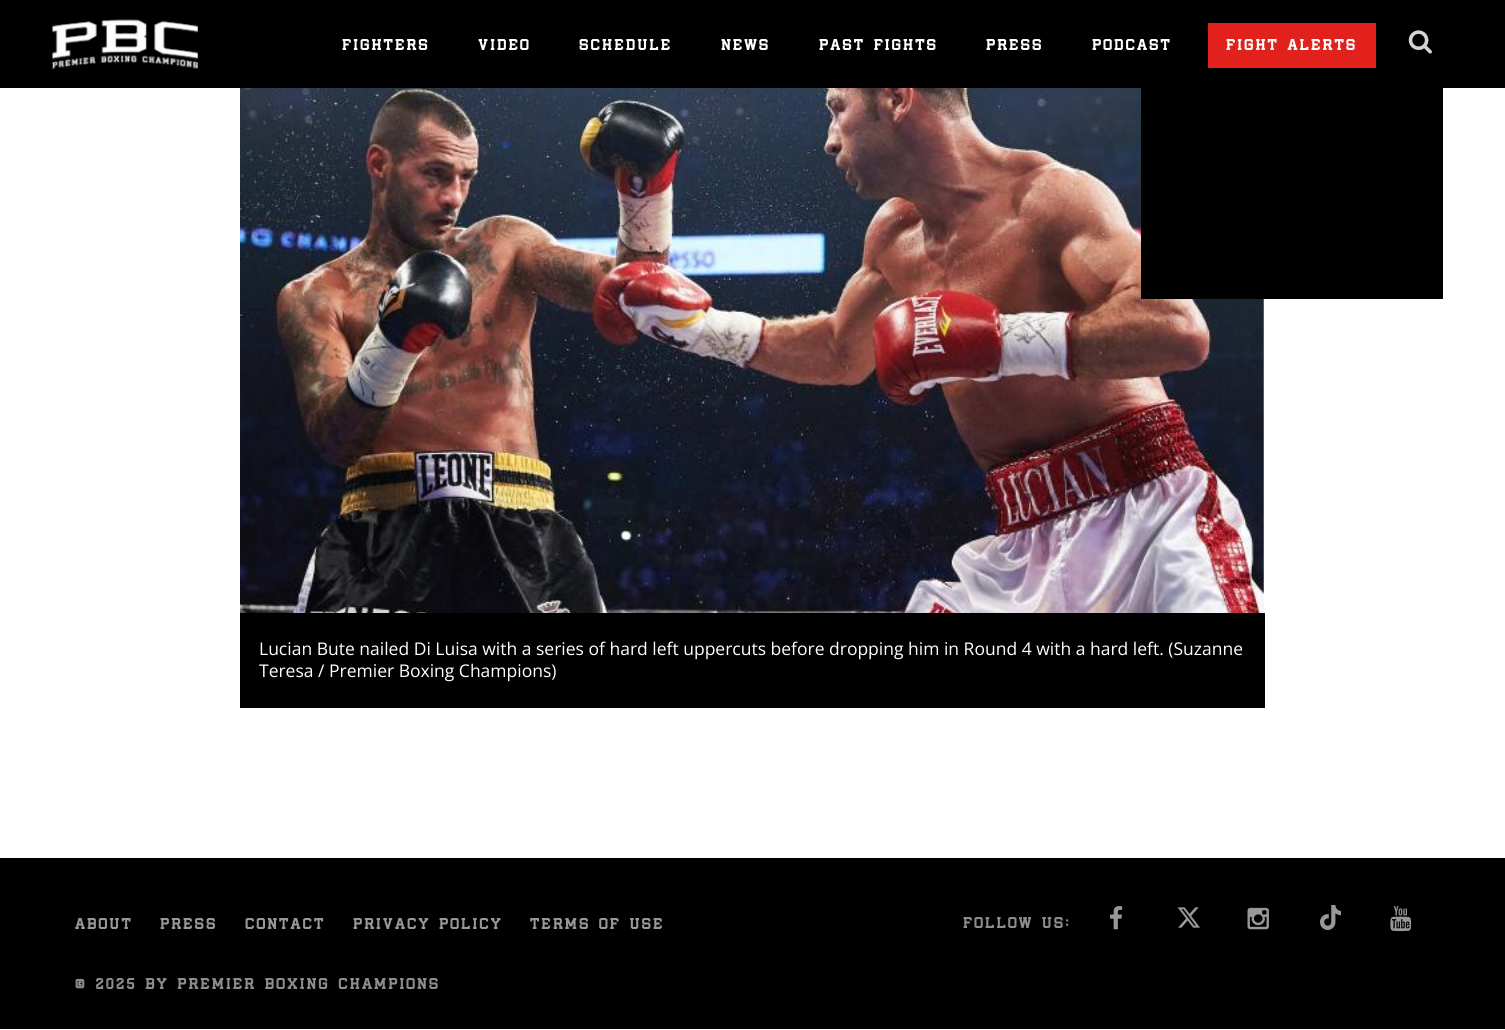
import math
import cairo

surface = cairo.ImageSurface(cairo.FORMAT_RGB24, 1505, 1030)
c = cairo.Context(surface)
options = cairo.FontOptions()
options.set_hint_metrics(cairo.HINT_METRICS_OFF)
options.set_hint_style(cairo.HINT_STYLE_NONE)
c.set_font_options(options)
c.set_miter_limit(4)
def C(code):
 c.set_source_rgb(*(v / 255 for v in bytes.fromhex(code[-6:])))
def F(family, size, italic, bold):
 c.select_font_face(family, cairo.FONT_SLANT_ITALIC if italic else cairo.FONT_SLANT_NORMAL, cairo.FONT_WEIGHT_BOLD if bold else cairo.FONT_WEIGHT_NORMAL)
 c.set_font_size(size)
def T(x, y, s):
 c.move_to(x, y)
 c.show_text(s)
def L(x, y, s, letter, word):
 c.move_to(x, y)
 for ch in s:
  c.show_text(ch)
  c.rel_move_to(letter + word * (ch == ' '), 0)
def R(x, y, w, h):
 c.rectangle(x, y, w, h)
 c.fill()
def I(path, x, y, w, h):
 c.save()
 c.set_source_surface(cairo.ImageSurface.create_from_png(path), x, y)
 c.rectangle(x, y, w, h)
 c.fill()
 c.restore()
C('ffffff')
c.paint()
C('000000')
R(0,0,1505,88)
I('1.png',52,19,147,51)
F('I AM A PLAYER',15,0,1)
C('ffffff')
L(342,50,'FIGHTERS',2.5,0)
L(478,50,'VIDEO',2.5,0)
L(579,50,'SCHEDULE',2.5,0)
L(721,50,'NEWS',2.5,0)
L(819,50,'PAST FIGHTS',2.5,0)
L(986,50,'PRESS',2.5,0)
L(1092,50,'PODCAST',2.5,0)
C('e2211c')
R(1208,23,168,45)
C('ffffff')
L(1226,50,'FIGHT ALERTS',2.5,0)
I('2.png',1408,30,24,24)
I('3.png',240,88,1024,525)
C('000000')
R(1141,88,302,211)
R(240,613,1025,95)
F('Open Sans',17.5,0,0)
C('ffffff')
T(259,655,'Lucian Bute nailed Di Luisa with a series of hard left uppercuts before dropping him in Round 4 with a hard left. (Suzanne')
T(259,677,'Teresa / Premier Boxing Champions)')
C('000000')
R(0,858,1505,171)
F('I AM A PLAYER',15,0,1)
C('979899')
L(75,929,'ABOUT',2.5,0)
L(160,929,'PRESS',2.5,0)
L(245,929,'CONTACT',2.5,0)
L(353,929,'PRIVACY POLICY',2.5,0)
L(530,929,'TERMS OF USE',2.5,0)
C('8d8d8d')
L(963,928,'FOLLOW US:',2.5,0)
I('4.png',1110,906,13,24)
I('5.png',1177,907,23,21)
I('6.png',1247,907,22,23)
I('7.png',1320,905,21,25)
I('8.png',1390,906,22,26)
L(75,989,'© 2025 BY PREMIER BOXING CHAMPIONS',2.5,0)
surface.write_to_png('o.png')
